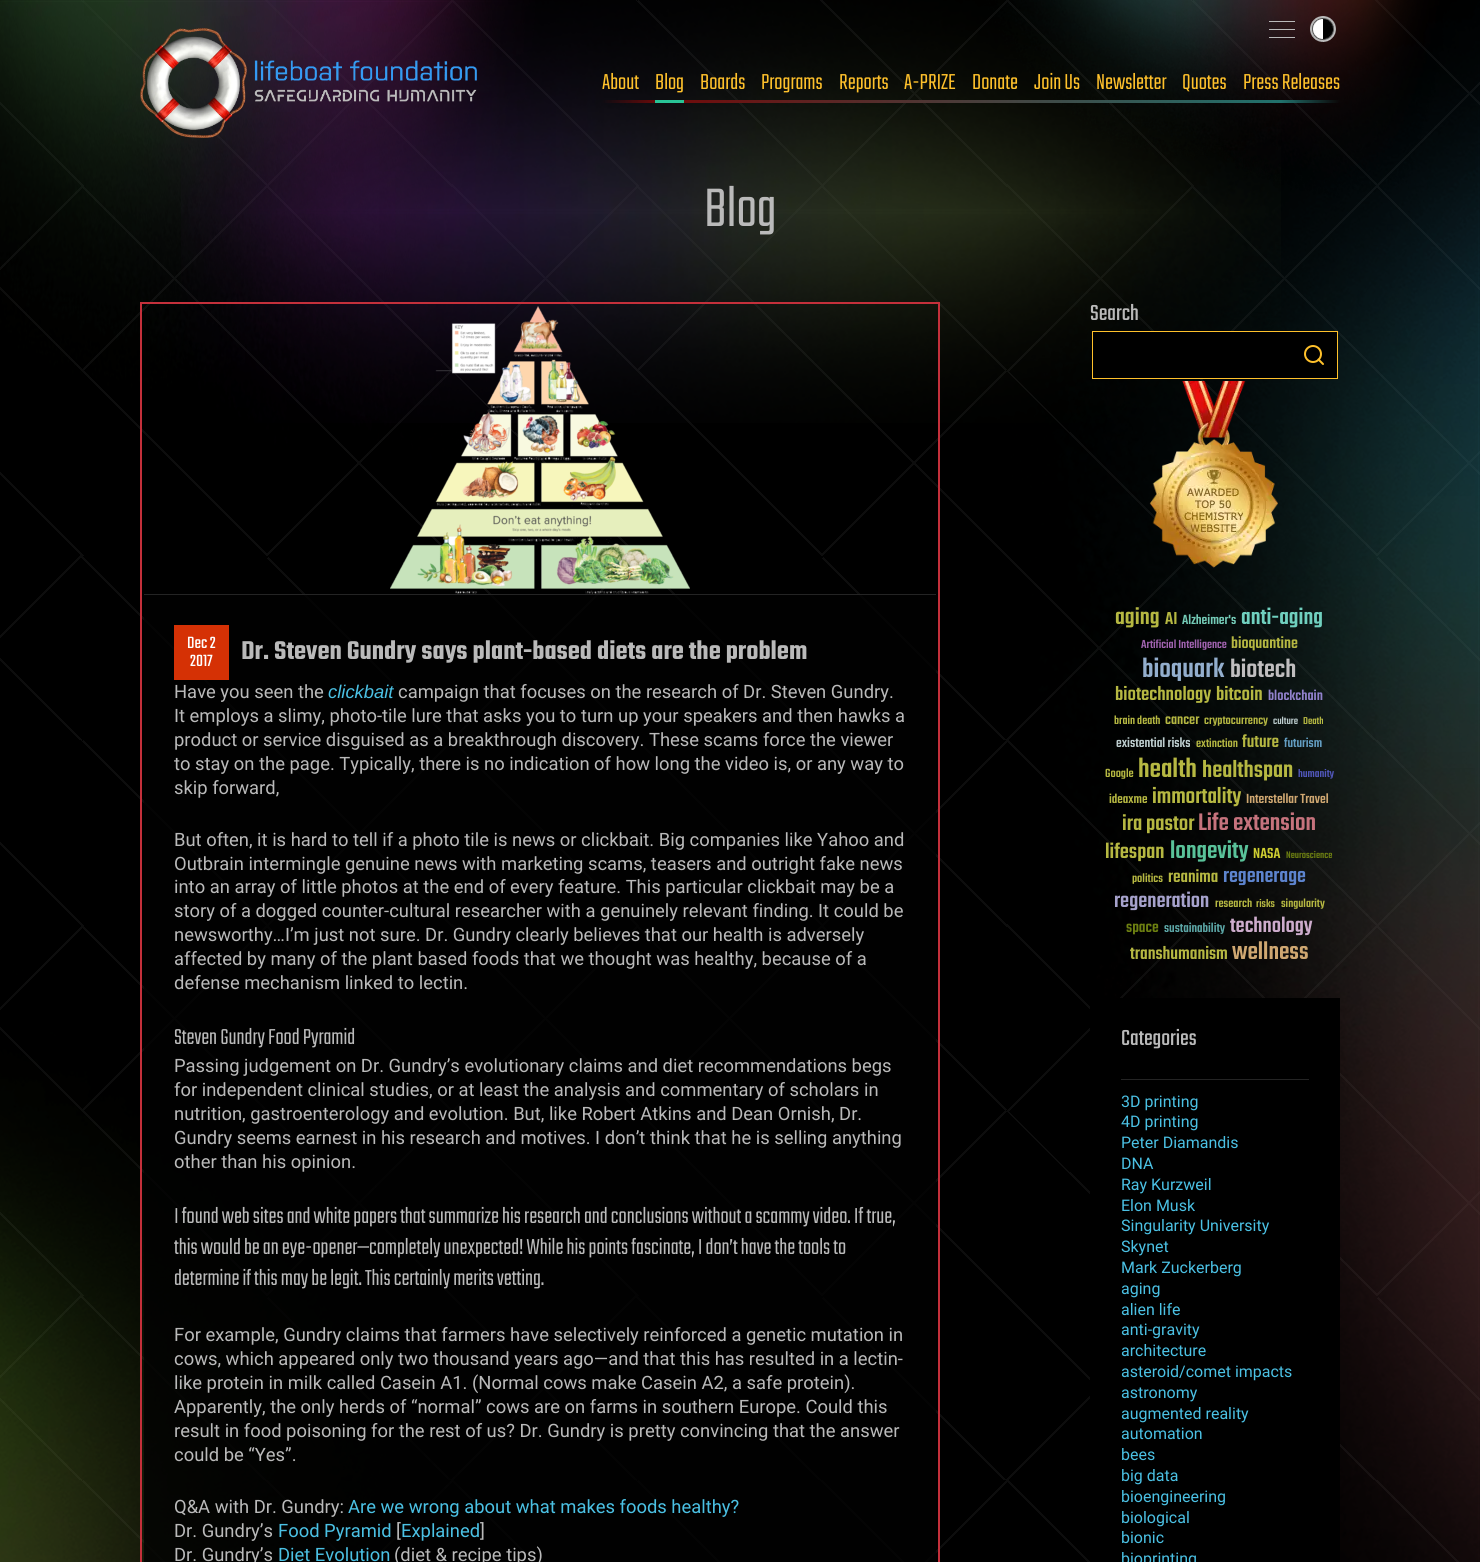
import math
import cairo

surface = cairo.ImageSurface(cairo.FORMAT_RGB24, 1480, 1562)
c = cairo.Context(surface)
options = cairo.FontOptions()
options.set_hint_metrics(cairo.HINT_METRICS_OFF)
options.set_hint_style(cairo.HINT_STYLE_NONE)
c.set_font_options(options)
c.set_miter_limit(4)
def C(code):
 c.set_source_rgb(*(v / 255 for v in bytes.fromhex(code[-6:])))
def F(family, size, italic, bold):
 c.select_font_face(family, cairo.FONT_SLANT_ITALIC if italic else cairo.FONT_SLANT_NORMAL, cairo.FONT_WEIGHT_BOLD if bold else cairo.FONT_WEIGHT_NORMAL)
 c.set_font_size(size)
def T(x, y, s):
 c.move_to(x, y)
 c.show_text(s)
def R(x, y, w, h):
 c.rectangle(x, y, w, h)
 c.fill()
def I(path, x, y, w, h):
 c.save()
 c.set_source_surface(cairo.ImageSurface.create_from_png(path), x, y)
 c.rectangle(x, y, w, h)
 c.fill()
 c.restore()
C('000000')
c.paint()
I('1.png',0,0,1480,1562)
I('4.png',181,0,1100,423)
C('bababa')
R(1269,29,26,1)
R(1269,21,26,1)
R(1269,37,26,1)
I('2.png',1310,16,26,26)
I('3.png',140,28,337,110)
F('Teko Light',24,0,0)
C('ffc12b')
T(602,89,'About')
T(655,89,'Blog')
gradient = cairo.LinearGradient(602,102,1340,101)
gradient.add_color_stop_rgba(0,0.447,0.035,0.035,0)
gradient.add_color_stop_rgba(.08,0.447,0.035,0.035,1)
gradient.add_color_stop_rgba(.92,0.129,0.447,0.427,1)
gradient.add_color_stop_rgba(1,0.129,0.447,0.427,0)
c.set_source(gradient)
R(602,100,738,3)
C('29c396')
R(655,100,29,3)
C('ffc12b')
T(700,89,'Boards')
T(761,89,'Programs')
T(839,89,'Reports')
T(904,89,'A-PRIZE')
T(972,89,'Donate')
T(1034,89,'Join Us')
T(1096,89,'Newsletter')
T(1182,89,'Quotes')
T(1243,89,'Press Releases')
F('Teko Light',60,0,0)
C('bababa')
T(704,226,'Blog')
c.rectangle(141,303,798,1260)
C('c4303b')
c.stroke()
C('242424')
R(144,594,792,1)
I('5.png',390,306,300,288)
c.set_source_rgba(0.008,0.008,0.008,0.8)
R(144,595,792,967)
C('d53105')
R(174,625,55,55)
F('Teko',18,0,0)
C('ffffff')
T(187,648,'Dec 2')
T(190,666,'2017')
F('Teko SemiBold',28,0,0)
C('bababa')
T(241,659,'Dr. Steven Gundry says plant-based diets are the problem')
F('Roboto',18.4,0,0)
T(174,698,'Have you seen the')
F('Liberation Sans',18.4,1,0)
C('4bc1e4')
T(328,698,'clickbait')
F('Roboto',18.4,0,0)
C('bababa')
T(398,698,'campaign that focuses on the research of Dr. Steven Gundry.')
T(174,722,'It employs a slimy, photo-tile lure that asks you to turn up your speakers and then hawks a')
T(174,746,'product or service disguised as a breakthrough discovery. These scams force the viewer')
T(174,770,'to stay on the page. Typically, there is no indication of how long the video is, or any way to')
T(174,794,'skip forward,')
T(174,846,'But often, it is hard to tell if a photo tile is news or clickbait. Big companies like Yahoo and')
T(174,870,'Outbrain intermingle genuine news with marketing scams, teasers and outright fake news')
T(174,893,'into an array of little photos at the end of every feature. This particular clickbait may be a')
T(174,917,'story of a dogged counter-cultural researcher with a genuinely relevant finding. It could be')
T(174,941,'newsworthy…I’m just not sure. Dr. Gundry clearly believes that our health is adversely')
T(174,965,'affected by many of the plant based foods that we thought was healthy, because of a')
T(174,989,'defense mechanism linked to lectin.')
F('Teko Light',24,0,0)
T(174,1044,'Steven Gundry Food Pyramid')
F('Roboto',18.4,0,0)
T(174,1072,'Passing judgement on Dr. Gundry’s evolutionary claims and diet recommendations begs')
T(174,1096,'for independent clinical studies, or at least the analysis and commentary of scholars in')
T(174,1120,'nutrition, gastroenterology and evolution. But, like Robert Atkins and Dean Ornish, Dr.')
T(174,1144,'Gundry seems earnest in his research and motives. I don’t think that he is selling anything')
T(174,1168,'other than his opinion.')
F('Teko Light',24,0,0)
T(174,1223,'I found web sites and white papers that summarize his research and conclusions without a scammy video. If true,')
T(174,1254,'this would be an eye-opener—completely unexpected! While his points fascinate, I don’t have the tools to')
T(174,1285,'determine if this may be legit. This certainly merits vetting.')
F('Roboto',18.4,0,0)
T(174,1341,'For example, Gundry claims that farmers have selectively reinforced a genetic mutation in')
T(174,1365,'cows, which appeared only two thousand years ago—and that this has resulted in a lectin-')
T(174,1389,'like protein in milk called Casein A1. (Normal cows make Casein A2, a safe protein).')
T(174,1413,'Apparently, the only herds of “normal” cows are on farms in southern Europe. Could this')
T(174,1437,'result in food poisoning for the rest of us? Dr. Gundry is pretty convincing that the answer')
T(174,1461,'could be “Yes”.')
T(174,1513,'Q&A with Dr. Gundry:')
C('4bc1e4')
T(348,1513,'Are we wrong about what makes foods healthy?')
C('bababa')
T(174,1537,'Dr. Gundry’s')
C('4bc1e4')
T(278,1537,'Food Pyramid')
C('bababa')
T(396,1537,'[')
C('4bc1e4')
T(401,1537,'Explained')
C('bababa')
T(480,1537,']')
T(174,1561,'Dr. Gundry’s')
C('4bc1e4')
T(278,1561,'Diet Evolution')
C('bababa')
T(394,1561,'(diet & recipe tips)')
F('Teko',24,0,0)
T(1090,320,'Search')
C('000000')
c.rectangle(1092.5,331.5,245,47)
c.fill_preserve()
C('ffc12b')
c.set_line_width(1)
c.stroke()
c.arc(1313,354,8,0,2 * math.pi)
c.set_line_width(2)
c.stroke()
c.new_path()
c.move_to(1323,364)
c.line_to(1318.5,359.5)
c.set_line_cap(cairo.LINE_CAP_ROUND)
c.set_line_join(cairo.LINE_JOIN_ROUND)
c.stroke()
I('6.png',1149,381,129,187)
F('Teko Medium',25,0,0)
C('b6b842')
T(1115,624,'aging')
F('Teko Medium',19,0,0)
T(1165,624,'AI')
F('Teko Medium',14.5,0,0)
C('74cbb7')
T(1182,624,'Alzheimer\'s')
F('Teko Medium',24.5,0,0)
C('70d0bf')
T(1241,624,'anti-aging')
F('Teko Medium',12.75,0,0)
C('a163b0')
T(1141,648,'Artificial Intelligence')
F('Teko Medium',17.5,0,0)
C('b6b842')
T(1231,648,'bioquantine')
F('Teko Medium',29,0,0)
C('93aecd')
T(1142,677,'bioquark')
F('Teko Medium',27.5,0,0)
C('c0bebf')
T(1230,677,'biotech')
F('Teko Medium',21,0,0)
C('b6b842')
T(1115,700,'biotechnology')
T(1216,700,'bitcoin')
F('Teko Medium',15.5,0,0)
C('9282cd')
T(1268,700,'blockchain')
F('Teko Medium',12.75,0,0)
C('b6b842')
T(1114,724,'brain death')
F('Teko Medium',15.5,0,0)
T(1165,724,'cancer')
F('Teko Medium',13,0,0)
T(1204,724,'cryptocurrency')
F('Teko Medium',11,0,0)
C('bdcdce')
T(1273,724,'culture')
C('b6b842')
T(1303,724,'Death')
F('Teko Medium',14.5,0,0)
C('bdcdce')
T(1116,747,'existential risks')
F('Teko Medium',13,0,0)
C('b6b842')
T(1196,747,'extinction')
F('Teko Medium',19,0,0)
T(1242,747,'future')
F('Teko Medium',14,0,0)
C('639ec3')
T(1284,747,'futurism')
F('Teko Medium',13,0,0)
C('b6b842')
T(1105,777,'Google')
F('Teko Medium',29,0,0)
T(1138,777,'health')
F('Teko Medium',25.5,0,0)
T(1202,777,'healthspan')
F('Teko Medium',12,0,0)
C('5157bc')
T(1298,777,'humanity')
F('Teko Medium',14,0,0)
C('b6b842')
T(1109,803,'ideaxme')
F('Teko Medium',24,0,0)
T(1152,803,'immortality')
F('Teko Medium',14.5,0,0)
C('cfa771')
T(1246,803,'Interstellar Travel')
F('Teko Medium',23.5,0,0)
C('b6b842')
T(1122,830,'ira pastor')
F('Teko Medium',26.25,0,0)
C('c6737d')
T(1198,830,'Life extension')
F('Teko Medium',23,0,0)
C('b6b842')
T(1105,858,'lifespan')
F('Teko Medium',26.5,0,0)
C('59c299')
T(1170,858,'longevity')
F('Teko Medium',16,0,0)
C('cece31')
T(1253,858,'NASA')
F('Teko Medium',10.5,0,0)
C('6d8011')
T(1286,858,'Neuroscience')
F('Teko Medium',13,0,0)
C('b6b842')
T(1132,882,'politics')
F('Teko Medium',19,0,0)
T(1168,882,'reanima')
F('Teko Medium',22.5,0,0)
C('5d84ce')
T(1223,882,'regenerage')
F('Teko Medium',23,0,0)
C('a6a2cc')
T(1114,907,'regeneration')
F('Teko Medium',13,0,0)
C('b6b842')
T(1215,907,'research')
F('Teko Medium',12,0,0)
T(1256,907,'risks')
F('Teko Medium',12.75,0,0)
T(1281,907,'singularity')
F('Teko Medium',17,0,0)
C('6d8011')
T(1126,932,'space')
F('Teko Medium',14,0,0)
C('5ca7a7')
T(1164,932,'sustainability')
F('Teko Medium',23,0,0)
C('cdaccc')
T(1230,932,'technology')
F('Teko Medium',19.5,0,0)
C('b6b842')
T(1130,959,'transhumanism')
F('Teko Medium',26.5,0,0)
C('cfa771')
T(1232,959,'wellness')
C('000000')
R(1090,998,250,564)
F('Teko',24,0,0)
C('bababa')
T(1121,1045,'Categories')
C('242424')
R(1121,1079,188,1)
F('Roboto',16,0,0)
C('4bc1e4')
T(1121,1107,'3D printing')
T(1121,1127,'4D printing')
T(1121,1148,'Peter Diamandis')
T(1121,1169,'DNA')
T(1121,1190,'Ray Kurzweil')
T(1121,1211,'Elon Musk')
T(1121,1231,'Singularity University')
T(1121,1252,'Skynet')
T(1121,1273,'Mark Zuckerberg')
T(1121,1294,'aging')
T(1121,1315,'alien life')
T(1121,1335,'anti-gravity')
T(1121,1356,'architecture')
T(1121,1377,'asteroid/comet impacts')
T(1121,1398,'astronomy')
T(1121,1419,'augmented reality')
T(1121,1439,'automation')
T(1121,1460,'bees')
T(1121,1481,'big data')
T(1121,1502,'bioengineering')
T(1121,1523,'biological')
T(1121,1543,'bionic')
T(1121,1564,'bioprinting')
surface.write_to_png('o.png')
